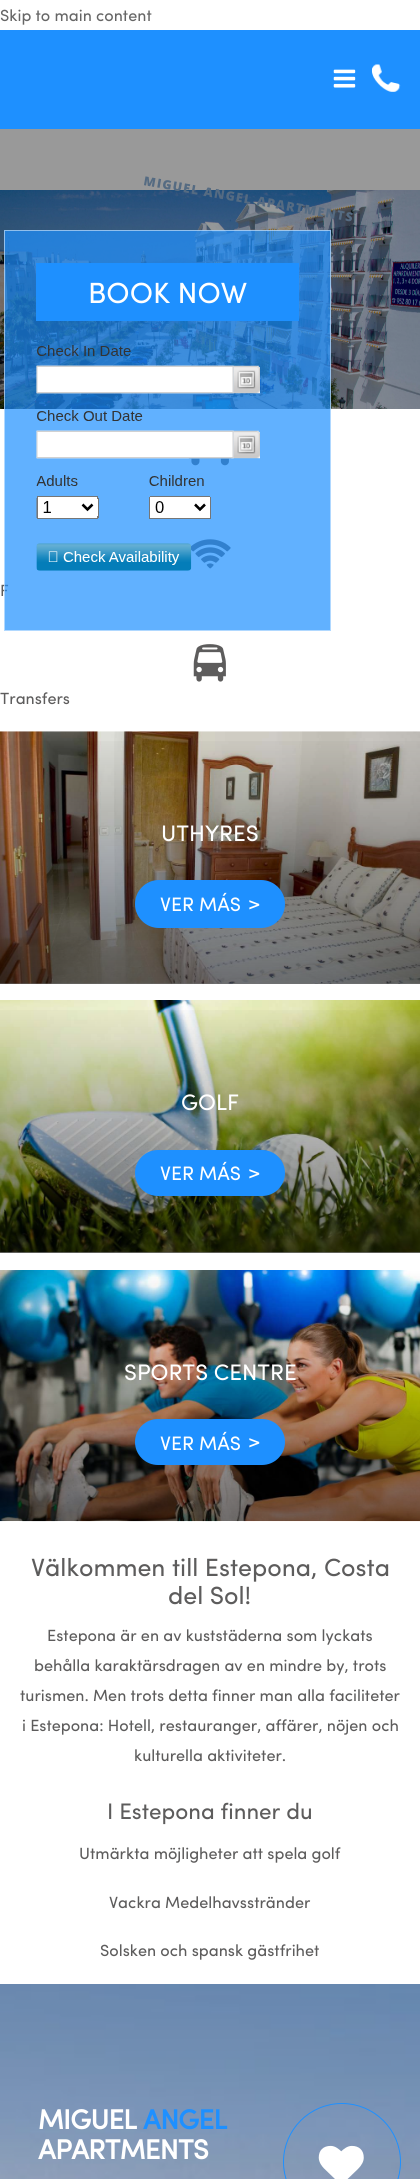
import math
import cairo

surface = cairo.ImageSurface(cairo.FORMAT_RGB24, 420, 2179)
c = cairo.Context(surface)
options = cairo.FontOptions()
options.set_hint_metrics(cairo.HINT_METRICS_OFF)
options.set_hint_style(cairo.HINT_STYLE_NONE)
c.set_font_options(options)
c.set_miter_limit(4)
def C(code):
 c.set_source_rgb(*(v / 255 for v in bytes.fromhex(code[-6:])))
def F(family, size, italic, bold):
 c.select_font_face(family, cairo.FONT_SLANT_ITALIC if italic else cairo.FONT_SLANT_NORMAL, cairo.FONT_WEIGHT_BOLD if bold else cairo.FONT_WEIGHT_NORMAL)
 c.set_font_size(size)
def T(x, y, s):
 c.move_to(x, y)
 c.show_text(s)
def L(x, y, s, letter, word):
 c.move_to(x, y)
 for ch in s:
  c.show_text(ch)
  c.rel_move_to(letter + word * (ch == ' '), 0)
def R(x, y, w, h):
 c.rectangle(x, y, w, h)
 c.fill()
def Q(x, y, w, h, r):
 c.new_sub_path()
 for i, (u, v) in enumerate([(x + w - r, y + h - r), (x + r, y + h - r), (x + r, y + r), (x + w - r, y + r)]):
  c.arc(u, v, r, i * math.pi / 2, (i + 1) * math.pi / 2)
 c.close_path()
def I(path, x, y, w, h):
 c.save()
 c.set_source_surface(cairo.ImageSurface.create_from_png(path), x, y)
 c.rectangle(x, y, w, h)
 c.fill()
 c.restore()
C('ffffff')
c.paint()
C('999999')
R(0,129,420,61)
F('Sofia',16.25,0,0)
C('666666')
T(0,21,'Skip to main content')
C('1e90ff')
R(0,30,420,99)
I('1.png',333,69,23,19)
I('2.png',371,64,30,28)
I('3.png',0,190,420,219)
F('Open Sans ExtraBold',12.5,0,0)
C('556b82')
c.save()
c.translate(143,185)
c.rotate(10 * math.pi / 180)
L(0,0,'MIGUEL ANGEL APARTMENTS',1.25,0)
c.restore()
I('5.png',188,458,44,8)
I('6.png',191,539,40,30)
F('Sofia',16.25,0,0)
C('5d5c5c')
T(0,596,'F')
c.set_source_rgba(0.118,0.565,1,0.7)
R(4,230,327,401)
c.rectangle(4.5,230.5,326,400)
c.set_source_rgba(1,1,1,0.5)
c.set_line_width(1)
c.stroke()
C('1e90ff')
R(36,263,263,58)
F('Sofia',29.25,0,0)
C('ffffff')
T(88,303,'BOOK NOW')
I('4.png',36,345,224,226)
I('7.png',193,644,33,38)
F('Sofia',16.25,0,0)
C('5d5c5c')
T(0,704,'Transfers')
I('8.png',0,731,420,253)
gradient = cairo.LinearGradient(210,731,210,984)
gradient.add_color_stop_rgba(0,0,0,0,0)
gradient.add_color_stop_rgba(.98,0,0,0,.55)
c.set_source(gradient)
R(0,741,420,243)
F('Sofia',22.5,0,0)
C('ffffff')
T(161,841,'UTHYRES')
C('1e90ff')
Q(135,880,150,48,24)
c.fill()
F('Sofia',19.5,0,0)
C('ffffff')
T(160,911,'VER MÁS')
T(248,910,'>')
I('9.png',0,1000,420,253)
gradient = cairo.LinearGradient(210,1000,210,1253)
gradient.add_color_stop_rgba(0,0,0,0,0)
gradient.add_color_stop_rgba(.98,0,0,0,.55)
c.set_source(gradient)
R(0,1010,420,243)
F('Sofia',22.5,0,0)
C('ffffff')
T(181,1110,'GOLF')
C('1e90ff')
Q(135,1150,150,46,23)
c.fill()
F('Sofia',19.5,0,0)
C('ffffff')
T(160,1180,'VER MÁS')
T(248,1179,'>')
I('10.png',0,1270,420,252)
F('Sofia',22.5,0,0)
T(124,1380,'SPORTS CENTRE')
C('1e90ff')
Q(135,1419,150,46,23)
c.fill()
F('Sofia',19.5,0,0)
C('ffffff')
T(160,1450,'VER MÁS')
T(248,1448,'>')
F('Sofia',25,0,0)
C('5d5c5c')
T(31,1576,'Välkommen till Estepona, Costa')
T(168,1604,'del Sol!')
F('Sofia',16.25,0,0)
T(47,1641,'Estepona är en av kuststäderna som lyckats')
T(34,1671,'behålla karaktärsdragen av en mindre by, trots')
T(20,1701,'turismen. Men trots detta finner man alla faciliteter')
T(22,1731,'i Estepona: Hotell, restauranger, affärer, nöjen och')
T(134,1761,'kulturella aktiviteter.')
F('Sofia',22.5,0,0)
T(107,1819,'I Estepona finner du')
F('Sofia',16.25,0,0)
T(79,1859,'Utmärkta möjligheter att spela golf')
T(109,1908,'Vackra Medelhavsstränder')
T(100,1956,'Solsken och spansk gästfrihet')
I('11.png',0,1984,420,195)
F('Sofia',27.5,0,1)
C('ffffff')
L(38,2129,'MIGUEL',-.6,0)
C('1e90ff')
L(143,2129,'ANGEL',-.6,0)
C('ffffff')
L(38,2159,'APARTMENTS',-.6,0)
c.new_path()
c.arc(342,2162,58.5,0,2 * math.pi)
C('1e90ff')
c.stroke()
I('12.png',318,2145,46,34)
surface.write_to_png('o.png')
